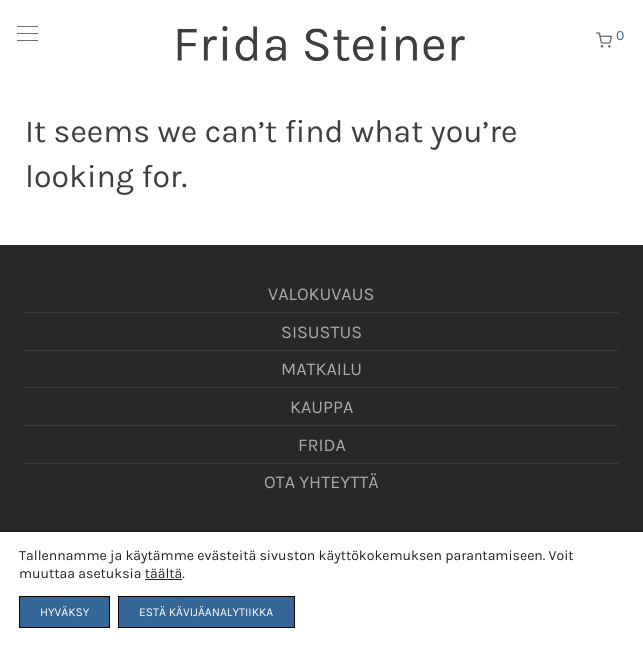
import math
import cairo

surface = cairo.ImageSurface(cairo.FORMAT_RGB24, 643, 646)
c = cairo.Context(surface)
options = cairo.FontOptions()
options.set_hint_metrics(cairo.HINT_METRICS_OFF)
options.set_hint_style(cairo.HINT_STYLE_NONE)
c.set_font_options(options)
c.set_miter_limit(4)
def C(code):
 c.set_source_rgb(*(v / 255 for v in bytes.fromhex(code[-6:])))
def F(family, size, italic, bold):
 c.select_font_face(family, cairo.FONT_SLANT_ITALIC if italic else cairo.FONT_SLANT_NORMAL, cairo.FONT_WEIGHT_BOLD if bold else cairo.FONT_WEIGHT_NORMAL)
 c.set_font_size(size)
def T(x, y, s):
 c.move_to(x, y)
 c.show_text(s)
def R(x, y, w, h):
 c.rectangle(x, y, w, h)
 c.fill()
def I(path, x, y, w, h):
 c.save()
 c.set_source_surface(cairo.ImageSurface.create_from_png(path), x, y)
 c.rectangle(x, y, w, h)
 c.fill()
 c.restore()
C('ffffff')
c.paint()
I('1.png',177,26,288,35)
C('707070')
R(17,26,21,1)
R(17,33,21,1)
R(17,40,21,1)
I('2.png',596,32,16,16)
F('Karla',14,0,0)
C('356797')
T(616,40,'0')
F('Karla',32,0,0)
C('3e3e3e')
T(25,142,'It seems we can’t find what you’re')
T(25,187,'looking for.')
C('282828')
R(0,245,643,286)
C('3a3a3a')
R(24,312,595,1)
F('Karla',18,0,0)
C('aaaaaa')
T(268,300,'VALOKUVAUS')
C('3a3a3a')
R(24,350,595,1)
C('aaaaaa')
T(281,338,'SISUSTUS')
C('3a3a3a')
R(24,387,595,1)
C('aaaaaa')
T(281,375,'MATKAILU')
C('3a3a3a')
R(24,425,595,1)
C('aaaaaa')
T(290,413,'KAUPPA')
C('3a3a3a')
R(24,463,595,1)
C('aaaaaa')
T(298,451,'FRIDA')
T(264,488,'OTA YHTEYTTÄ')
C('202020')
R(0,531,643,1)
F('Karla',14,0,0)
T(19,560,'Tallennamme ja käytämme evästeitä sivuston käyttökokemuksen parantamiseen. Voit')
T(19,578,'muuttaa asetuksia täältä.')
R(145,579,37,1)
C('356797')
c.rectangle(19.5,596.5,90,31)
c.fill_preserve()
C('000000')
c.set_line_width(1)
c.stroke()
F('Karla',12,0,0)
C('ffffff')
T(40,616,'HYVÄKSY')
C('356797')
c.rectangle(118.5,596.5,176,31)
c.fill_preserve()
C('000000')
c.stroke()
C('ffffff')
T(139,616,'ESTÄ KÄVIJÄANALYTIIKKA')
surface.write_to_png('o.png')
